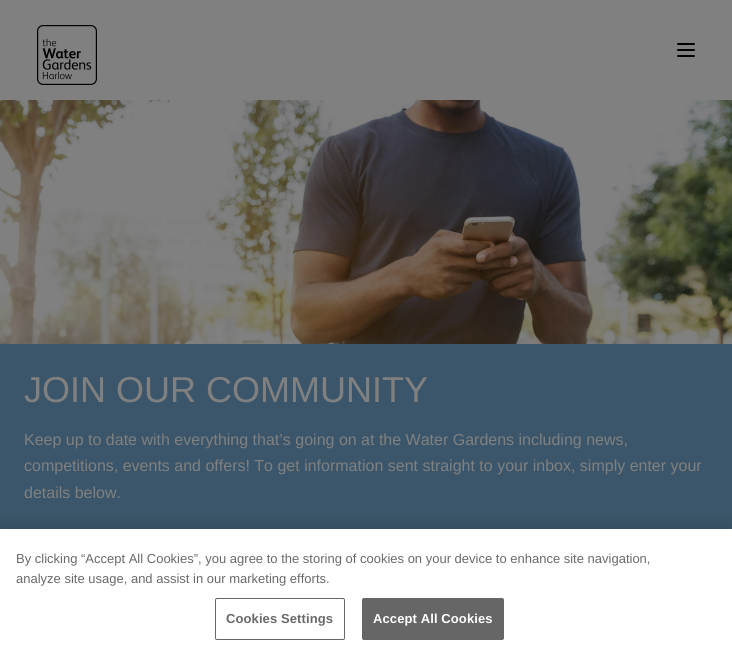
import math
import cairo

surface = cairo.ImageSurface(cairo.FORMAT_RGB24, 732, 656)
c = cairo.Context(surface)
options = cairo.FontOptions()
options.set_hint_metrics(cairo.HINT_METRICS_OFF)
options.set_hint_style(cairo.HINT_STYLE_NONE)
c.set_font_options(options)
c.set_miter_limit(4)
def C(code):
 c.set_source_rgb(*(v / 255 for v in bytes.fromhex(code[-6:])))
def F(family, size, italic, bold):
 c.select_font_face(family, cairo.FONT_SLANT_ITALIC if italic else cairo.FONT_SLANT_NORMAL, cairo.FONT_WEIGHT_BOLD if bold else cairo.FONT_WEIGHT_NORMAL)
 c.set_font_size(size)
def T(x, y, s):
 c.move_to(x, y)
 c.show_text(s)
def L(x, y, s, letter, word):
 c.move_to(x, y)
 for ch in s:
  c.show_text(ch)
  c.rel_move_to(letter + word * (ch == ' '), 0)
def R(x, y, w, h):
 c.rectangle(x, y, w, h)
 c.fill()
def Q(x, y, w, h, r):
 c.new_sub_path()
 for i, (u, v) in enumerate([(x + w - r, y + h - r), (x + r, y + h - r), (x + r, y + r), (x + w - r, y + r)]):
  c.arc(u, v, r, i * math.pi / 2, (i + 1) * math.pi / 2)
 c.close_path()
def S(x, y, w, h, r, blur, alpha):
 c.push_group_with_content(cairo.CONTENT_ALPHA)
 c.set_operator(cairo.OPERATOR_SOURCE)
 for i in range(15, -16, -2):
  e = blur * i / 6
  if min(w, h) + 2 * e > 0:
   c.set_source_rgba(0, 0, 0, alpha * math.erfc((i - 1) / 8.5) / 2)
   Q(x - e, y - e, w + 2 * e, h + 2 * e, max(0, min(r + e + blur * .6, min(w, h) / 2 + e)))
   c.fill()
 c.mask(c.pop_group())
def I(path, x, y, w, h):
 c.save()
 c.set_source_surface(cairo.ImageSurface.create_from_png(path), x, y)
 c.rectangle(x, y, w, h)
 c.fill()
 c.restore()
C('808080')
c.paint()
I('1.png',37,25,60,60)
C('000000')
Q(677,43,18,2,1)
c.fill()
Q(677,49,18,2,1)
c.fill()
Q(677,55,18,2,1)
c.fill()
I('2.png',0,100,732,244)
C('3b566a')
R(0,344,732,185)
F('Liberation Sans',36,0,0)
C('808080')
T(24,402,'JOIN OUR COMMUNITY')
F('Liberation Sans',16,0,0)
T(24,445,'Keep up to date with everything that’s going on at the Water Gardens including news,')
T(24,471,'competitions, events and offers! To get information sent straight to your inbox, simply enter your')
T(24,498,'details below.')
C('000000')
S(0,529,732,127,0,9,.2)
C('ffffff')
R(0,529,732,127)
F('Liberation Sans',13,0,0)
C('696969')
T(16,563,'By clicking “Accept All Cookies”, you agree to the storing of cookies on your device to enhance site navigation,')
T(16,583,'analyze site usage, and assist in our marketing efforts.')
Q(215.5,598.5,129,41,1.5)
C('666666')
c.set_line_width(1)
c.stroke()
F('Liberation Sans',13,0,1)
C('696969')
L(226,623,'Cookies Settings',.1,0)
C('666666')
Q(362.5,598.5,141,41,1.5)
c.fill_preserve()
c.stroke()
C('ffffff')
L(373,623,'Accept All Cookies',.1,0)
surface.write_to_png('o.png')
